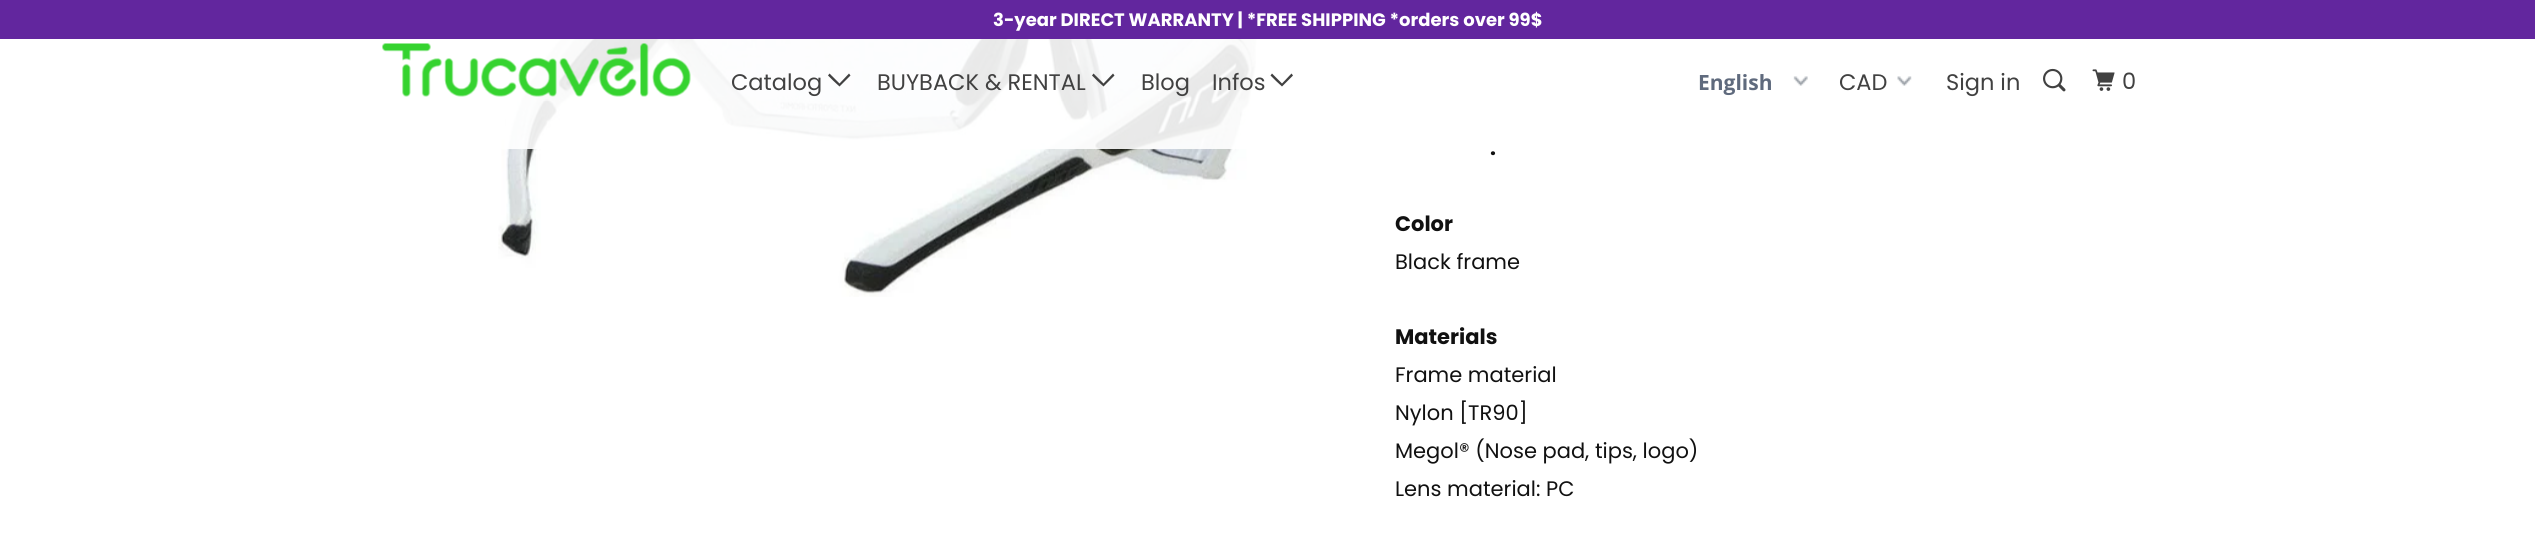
import math
import cairo

surface = cairo.ImageSurface(cairo.FORMAT_RGB24, 2535, 550)
c = cairo.Context(surface)
options = cairo.FontOptions()
options.set_hint_metrics(cairo.HINT_METRICS_OFF)
options.set_hint_style(cairo.HINT_STYLE_NONE)
c.set_font_options(options)
c.set_miter_limit(4)
def C(code):
 c.set_source_rgb(*(v / 255 for v in bytes.fromhex(code[-6:])))
def F(family, size, italic, bold):
 c.select_font_face(family, cairo.FONT_SLANT_ITALIC if italic else cairo.FONT_SLANT_NORMAL, cairo.FONT_WEIGHT_BOLD if bold else cairo.FONT_WEIGHT_NORMAL)
 c.set_font_size(size)
def T(x, y, s):
 c.move_to(x, y)
 c.show_text(s)
def R(x, y, w, h):
 c.rectangle(x, y, w, h)
 c.fill()
def I(path, x, y, w, h):
 c.save()
 c.set_source_surface(cairo.ImageSurface.create_from_png(path), x, y)
 c.rectangle(x, y, w, h)
 c.fill()
 c.restore()
C('ffffff')
c.paint()
C('62269e')
R(0,0,2535,39)
F('Poppins',18,0,1)
C('ffffff')
T(993,26,'3-year DIRECT WARRANTY | *FREE SHIPPING *orders over 99$')
I('6.png',498,39,763,258)
c.set_source_rgba(1,1,1,0.9)
R(506,39,755,110)
I('1.png',382,43,309,54)
F('Poppins',22.5,0,0)
C('414141')
T(731,90,'Catalog')
c.new_path()
c.move_to(833.5,81)
c.line_to(828,75.5)
c.line_to(829.5,73.5)
c.line_to(839.5,83.5)
c.line_to(849,73.5)
c.line_to(850.5,75.5)
c.line_to(839.5,86.5)
c.close_path()
c.fill()
T(877,90,'BUYBACK & RENTAL')
c.new_path()
c.move_to(1097.5,81)
c.line_to(1092,75.5)
c.line_to(1093.5,73.5)
c.line_to(1103.5,83.5)
c.line_to(1113,73.5)
c.line_to(1114.5,75.5)
c.line_to(1103.5,86.5)
c.close_path()
c.fill()
T(1141,90,'Blog')
T(1212,90,'Infos')
c.new_path()
c.move_to(1276,81)
c.line_to(1270.5,75.5)
c.line_to(1272,73.5)
c.line_to(1282,83.5)
c.line_to(1291.5,73.5)
c.line_to(1293,75.5)
c.line_to(1282,86.5)
c.close_path()
c.fill()
I('2.png',1793,76,15,10)
F('Open Sans',21,0,1)
C('5f6a7d')
T(1698,90,'English')
I('3.png',1897,76,15,10)
F('Poppins',22.5,0,0)
C('414141')
T(1839,90,'CAD')
T(1946,90,'Sign in')
I('4.png',2043,68,23,24)
I('5.png',2092,69,23,22)
T(2122,89,'0')
F('Poppins',21,0,1)
C('111111')
T(1490,155,'.')
T(1395,231,'Color')
F('Poppins',21,0,0)
T(1395,269,'Black frame')
F('Poppins',21,0,1)
T(1395,344,'Materials')
F('Poppins',21,0,0)
T(1395,382,'Frame material')
T(1395,420,'Nylon [TR90]')
T(1395,458,'Megol® (Nose pad, tips, logo)')
T(1395,496,'Lens material: PC')
surface.write_to_png('o.png')
